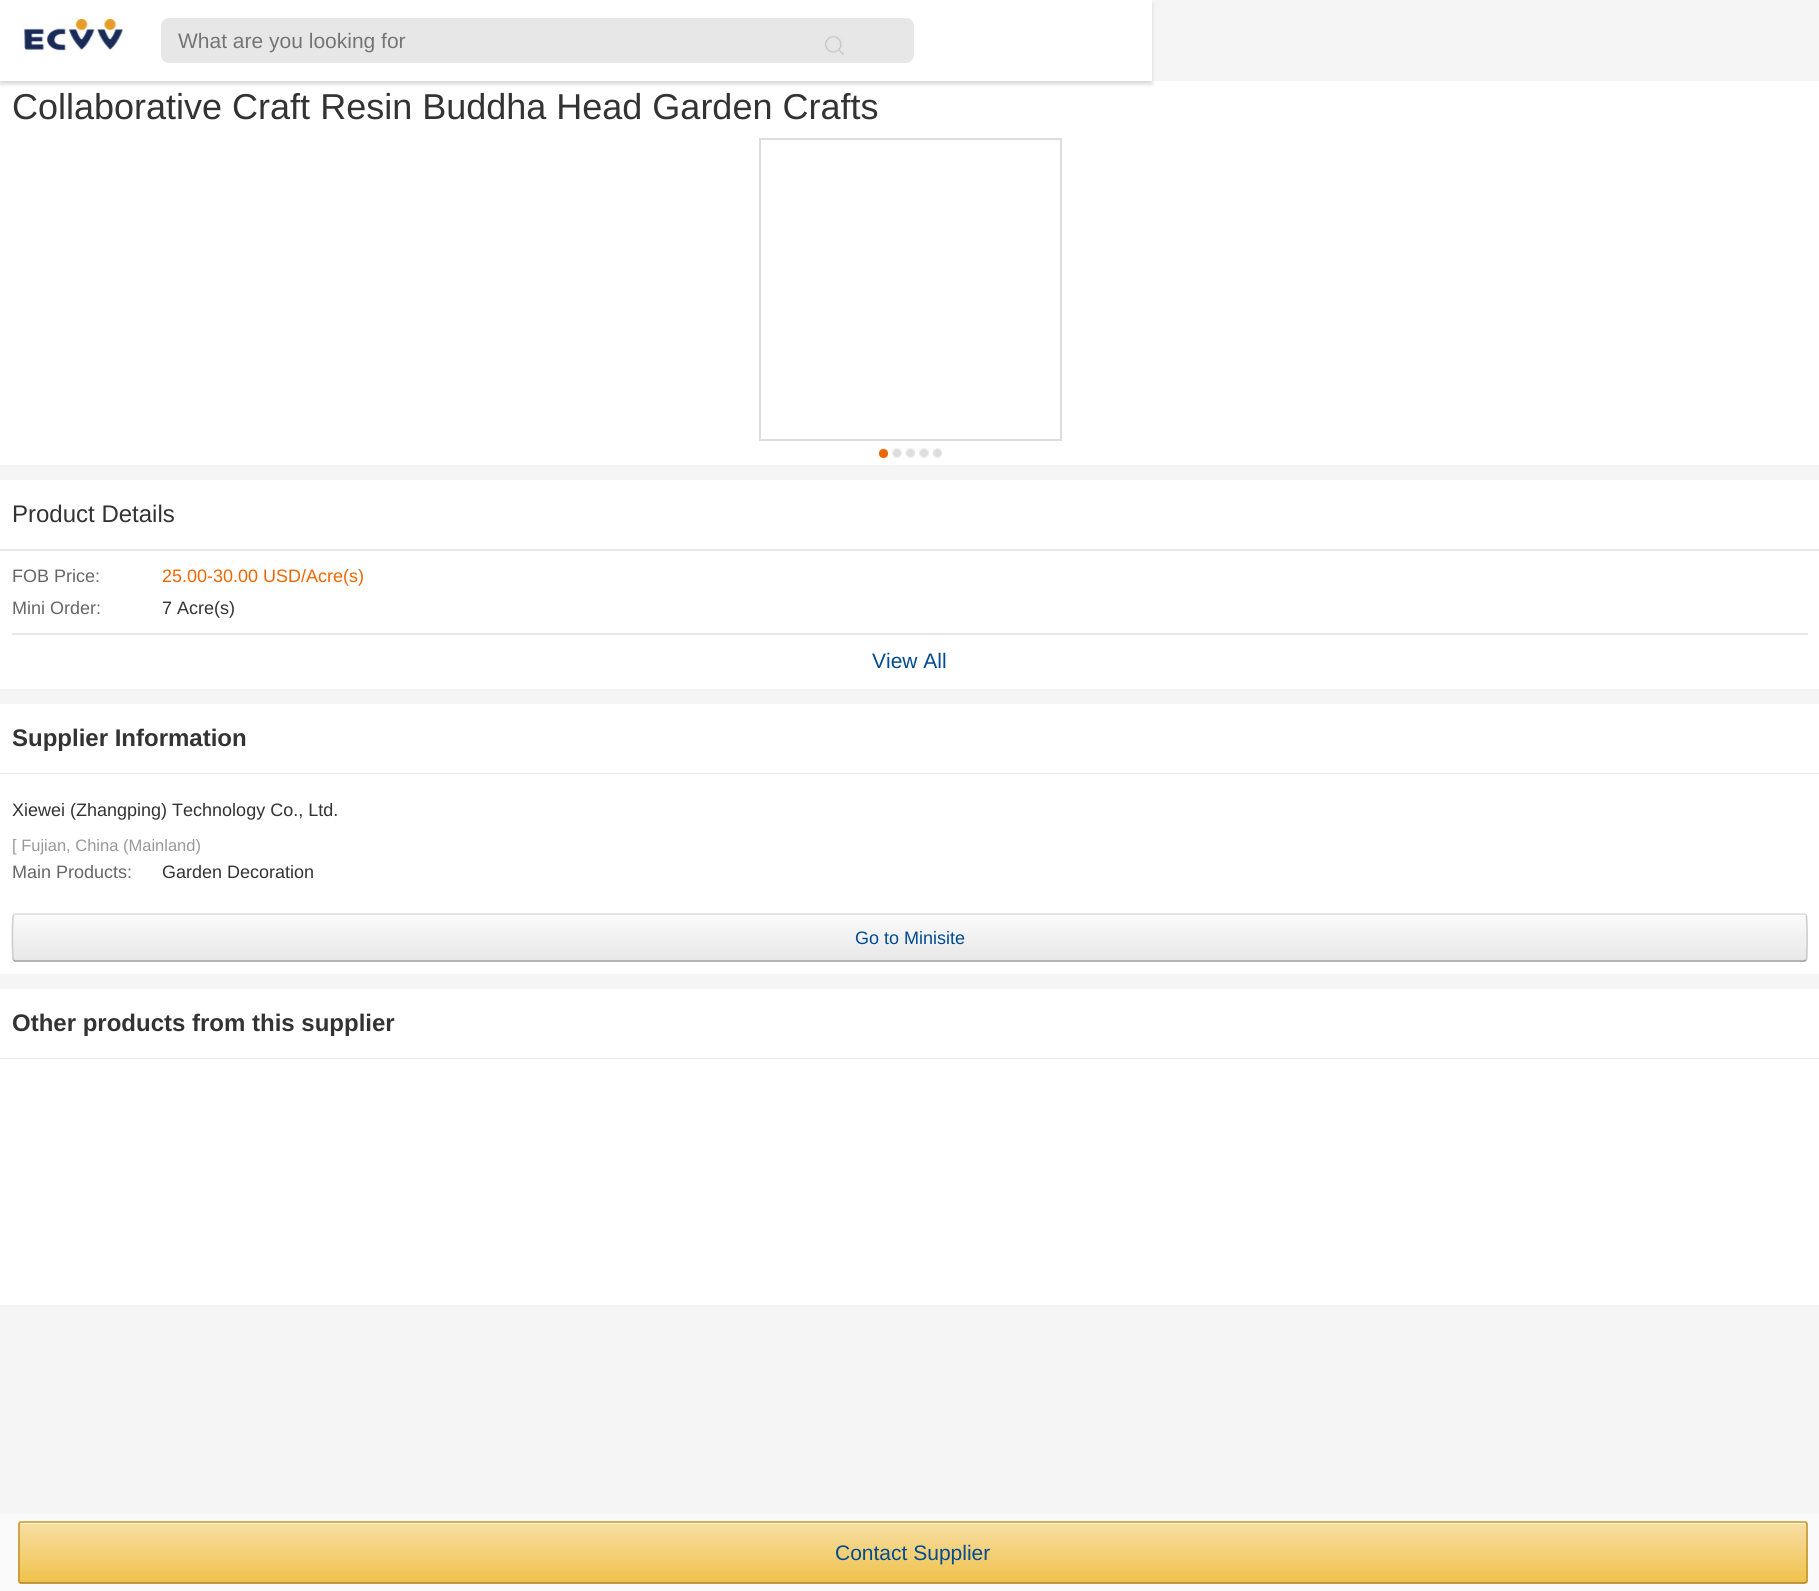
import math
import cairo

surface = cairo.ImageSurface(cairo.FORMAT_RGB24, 1819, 1591)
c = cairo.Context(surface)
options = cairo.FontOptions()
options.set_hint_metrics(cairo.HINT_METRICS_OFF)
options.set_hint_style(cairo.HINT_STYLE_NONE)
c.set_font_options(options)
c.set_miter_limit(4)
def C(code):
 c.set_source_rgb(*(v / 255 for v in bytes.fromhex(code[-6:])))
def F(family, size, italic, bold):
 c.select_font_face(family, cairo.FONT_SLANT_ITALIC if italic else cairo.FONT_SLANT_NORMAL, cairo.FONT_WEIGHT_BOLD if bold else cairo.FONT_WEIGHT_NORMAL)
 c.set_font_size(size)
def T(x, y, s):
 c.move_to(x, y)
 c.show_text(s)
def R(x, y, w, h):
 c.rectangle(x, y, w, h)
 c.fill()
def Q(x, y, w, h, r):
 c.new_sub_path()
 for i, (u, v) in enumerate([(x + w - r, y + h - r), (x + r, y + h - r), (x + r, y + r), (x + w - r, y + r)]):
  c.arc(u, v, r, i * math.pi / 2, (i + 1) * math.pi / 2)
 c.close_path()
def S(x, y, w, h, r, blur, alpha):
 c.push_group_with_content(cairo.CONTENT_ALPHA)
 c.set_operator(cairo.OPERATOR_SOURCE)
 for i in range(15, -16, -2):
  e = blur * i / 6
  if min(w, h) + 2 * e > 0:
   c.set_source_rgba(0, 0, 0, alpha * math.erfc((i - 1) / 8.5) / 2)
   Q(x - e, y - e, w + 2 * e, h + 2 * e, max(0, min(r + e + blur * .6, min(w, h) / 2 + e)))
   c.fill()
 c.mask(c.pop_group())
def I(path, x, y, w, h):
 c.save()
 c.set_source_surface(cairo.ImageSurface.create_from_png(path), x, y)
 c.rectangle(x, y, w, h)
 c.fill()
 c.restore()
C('f5f5f5')
c.paint()
C('ffffff')
R(0,81,1819,384)
C('d9d7d7')
S(0,3,1152,81,0,2,1)
C('ffffff')
R(0,0,1152,81)
I('1.png',22,18,101,35)
C('e7e7e7')
Q(161,18,753,45,8)
c.fill()
F('Liberation Sans',21,0,0)
C('757575')
T(178,48,'What are you looking for')
I('2.png',825,35,19,21)
F('Liberation Sans',36,0,0)
C('333333')
T(12,119,'Collaborative Craft Resin Buddha Head Garden Crafts')
c.rectangle(760,139,301,301)
C('dddddd')
c.stroke()
I('3.png',879,448,63,10)
C('ee6600')
c.arc(883.5,453.5,4.5,0,2 * math.pi)
c.fill()
C('ffffff')
R(0,480,1819,69)
C('e6e7eb')
R(0,549,1819,2)
F('Liberation Sans',24,0,0)
C('333333')
T(12,522,'Product Details')
C('ffffff')
R(0,551,1819,138)
F('Liberation Sans',18,0,0)
C('666666')
T(12,582,'FOB Price:')
C('ee6600')
T(162,582,'25.00-30.00 USD/Acre(s)')
C('666666')
T(12,614,'Mini Order:')
C('333333')
T(162,614,'7 Acre(s)')
C('e6e7eb')
R(12,633,1796,2)
F('Liberation Sans',21,0,0)
C('004b91')
T(872,668,'View All')
C('ffffff')
R(0,704,1819,69)
C('e6e7eb')
R(0,773,1819,1)
F('Liberation Sans',24,0,1)
C('333333')
T(12,746,'Supplier Information')
C('ffffff')
R(0,774,1819,200)
F('Liberation Sans',18,0,0)
C('333333')
T(12,816,'Xiewei (Zhangping) Technology Co., Ltd.')
F('Liberation Sans',16.5,0,0)
C('999999')
T(12,851,'[ Fujian, China (Mainland)')
F('Liberation Sans',18,0,0)
C('666666')
T(12,878,'Main Products:')
C('333333')
T(162,878,'Garden Decoration')
c.save()
Q(12,914,1796,48,3)
c.clip()
gradient = cairo.LinearGradient(910,870,910,915)
gradient.add_color_stop_rgba(0,0.98,0.98,0.98,1)
gradient.add_color_stop_rgba(1,0.91,0.91,0.91,1)
c.set_source(gradient)
R(12,914,1796,1)
gradient = cairo.LinearGradient(910,915,910,960)
gradient.add_color_stop_rgba(0,0.98,0.98,0.98,1)
gradient.add_color_stop_rgba(1,0.91,0.91,0.91,1)
c.set_source(gradient)
R(12,915,1796,45)
gradient = cairo.LinearGradient(910,960,910,1005)
gradient.add_color_stop_rgba(0,0.98,0.98,0.98,1)
gradient.add_color_stop_rgba(1,0.91,0.91,0.91,1)
c.set_source(gradient)
R(12,960,1796,2)
c.restore()
C('fdfdfd')
c.new_path()
c.move_to(15,916)
c.line_to(1804,916)
c.curve_to(1805,916,1806,917,1806,918)
c.line_to(1806,916)
c.line_to(1805,915)
c.line_to(16,915)
c.curve_to(14,915,14,917,14,918)
c.curve_to(14,917,14,916,15,916)
c.close_path()
c.fill()
c.new_path()
c.move_to(13.5,915)
c.line_to(15,914)
c.line_to(1804.5,914)
c.line_to(1806,915)
C('dddddd')
c.set_line_width(1.5)
c.stroke()
c.new_path()
c.move_to(1806,915)
c.curve_to(1807.5,916,1807.5,959,1806,960)
C('cccccc')
c.stroke()
c.new_path()
c.move_to(1806,960)
c.line_to(1804.5,961)
c.line_to(15,961)
c.line_to(13.5,960)
C('999999')
c.stroke()
c.new_path()
c.move_to(13.5,960)
c.curve_to(12,959,12,916,13.5,915)
C('cccccc')
c.stroke()
C('004b91')
T(855,944,'Go to Minisite')
C('ffffff')
R(0,989,1819,69)
C('e6e7eb')
R(0,1058,1819,1)
F('Liberation Sans',24,0,1)
C('333333')
T(12,1031,'Other products from this supplier')
C('ffffff')
R(0,1059,1819,246)
C('fafafa')
R(0,1514,1819,77)
c.save()
Q(18,1521,1790,63,3)
c.clip()
gradient = cairo.LinearGradient(913,1462,913,1523)
gradient.add_color_stop_rgba(0,0.969,0.875,0.647,1)
gradient.add_color_stop_rgba(1,0.941,0.757,0.294,1)
c.set_source(gradient)
R(18,1521,1790,2)
gradient = cairo.LinearGradient(913,1522,913,1583)
gradient.add_color_stop_rgba(0,0.969,0.875,0.647,1)
gradient.add_color_stop_rgba(1,0.941,0.757,0.294,1)
c.set_source(gradient)
R(18,1523,1790,60)
gradient = cairo.LinearGradient(913,1583,913,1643)
gradient.add_color_stop_rgba(0,0.969,0.875,0.647,1)
gradient.add_color_stop_rgba(1,0.941,0.757,0.294,1)
c.set_source(gradient)
R(18,1583,1790,1)
c.restore()
C('fcf2da')
c.new_path()
c.move_to(21,1524)
c.line_to(1804,1524)
c.curve_to(1805,1524,1806,1525,1806,1526)
c.line_to(1806,1524)
c.line_to(1805,1523)
c.line_to(22,1523)
c.curve_to(20,1523,20,1525,20,1526)
c.curve_to(20,1525,20,1524,21,1524)
c.close_path()
c.fill()
c.new_path()
c.move_to(19.5,1522.5)
c.line_to(21,1522)
c.line_to(1804.5,1522)
c.line_to(1806,1522.5)
C('cba957')
c.stroke()
c.new_path()
c.move_to(1806,1522.5)
c.line_to(1807,1524)
c.line_to(1807,1581)
c.line_to(1806,1582.5)
C('bf942a')
c.stroke()
c.new_path()
c.move_to(1806,1582.5)
c.line_to(1804.5,1583)
c.line_to(21,1583)
c.line_to(19.5,1582.5)
C('aa8326')
c.stroke()
c.new_path()
c.move_to(19.5,1582.5)
c.line_to(19,1581)
c.line_to(19,1524)
c.line_to(19.5,1522.5)
C('bf942a')
c.stroke()
F('Liberation Sans',21,0,0)
C('004b91')
T(835,1560,'Contact Supplier')
surface.write_to_png('o.png')
